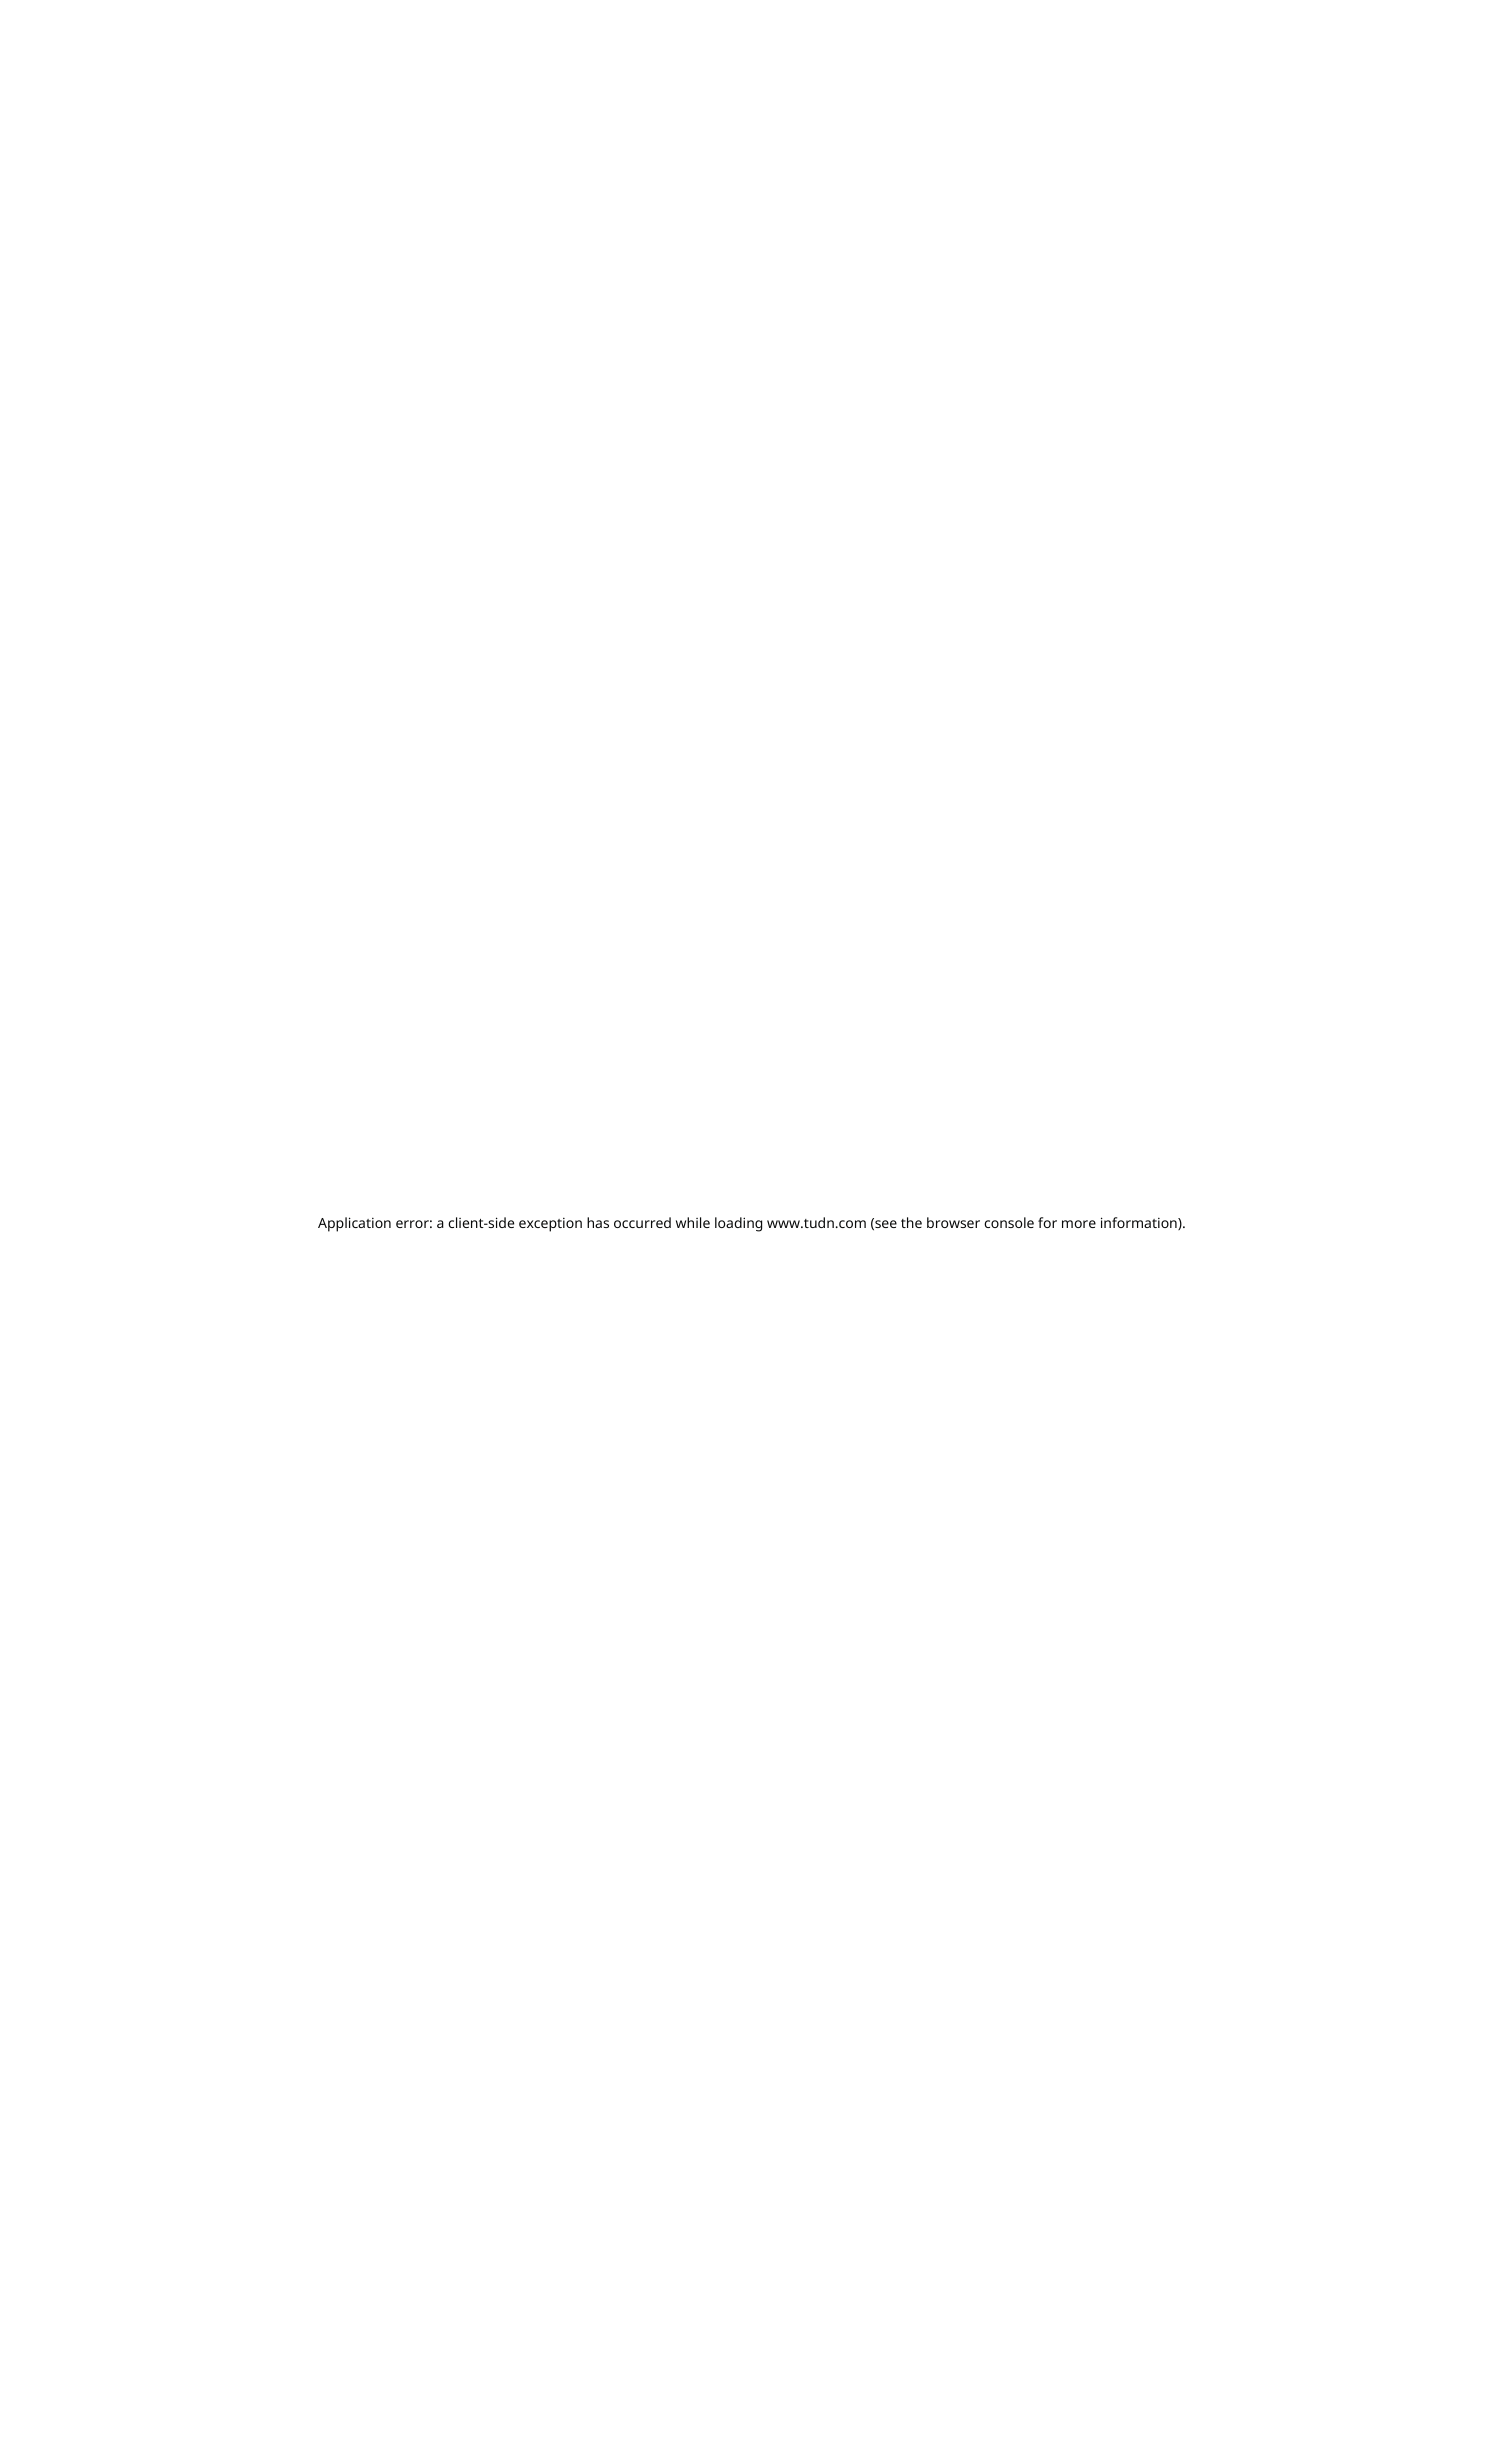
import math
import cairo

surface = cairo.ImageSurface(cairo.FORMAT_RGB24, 1504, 2446)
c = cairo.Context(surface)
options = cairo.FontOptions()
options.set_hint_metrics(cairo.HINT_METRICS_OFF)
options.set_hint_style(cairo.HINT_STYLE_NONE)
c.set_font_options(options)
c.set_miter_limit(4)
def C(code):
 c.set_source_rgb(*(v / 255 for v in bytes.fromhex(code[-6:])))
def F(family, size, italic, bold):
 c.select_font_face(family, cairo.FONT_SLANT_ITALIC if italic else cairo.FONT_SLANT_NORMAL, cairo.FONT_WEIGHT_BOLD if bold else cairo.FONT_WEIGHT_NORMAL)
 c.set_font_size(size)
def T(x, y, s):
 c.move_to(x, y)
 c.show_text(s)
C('ffffff')
c.paint()
F('Noto Sans',14,0,0)
C('0a0b0b')
T(318,1228,'Application error: a client-side exception has occurred while loading www.tudn.com (see the browser console for more information).')
surface.write_to_png('o.png')
